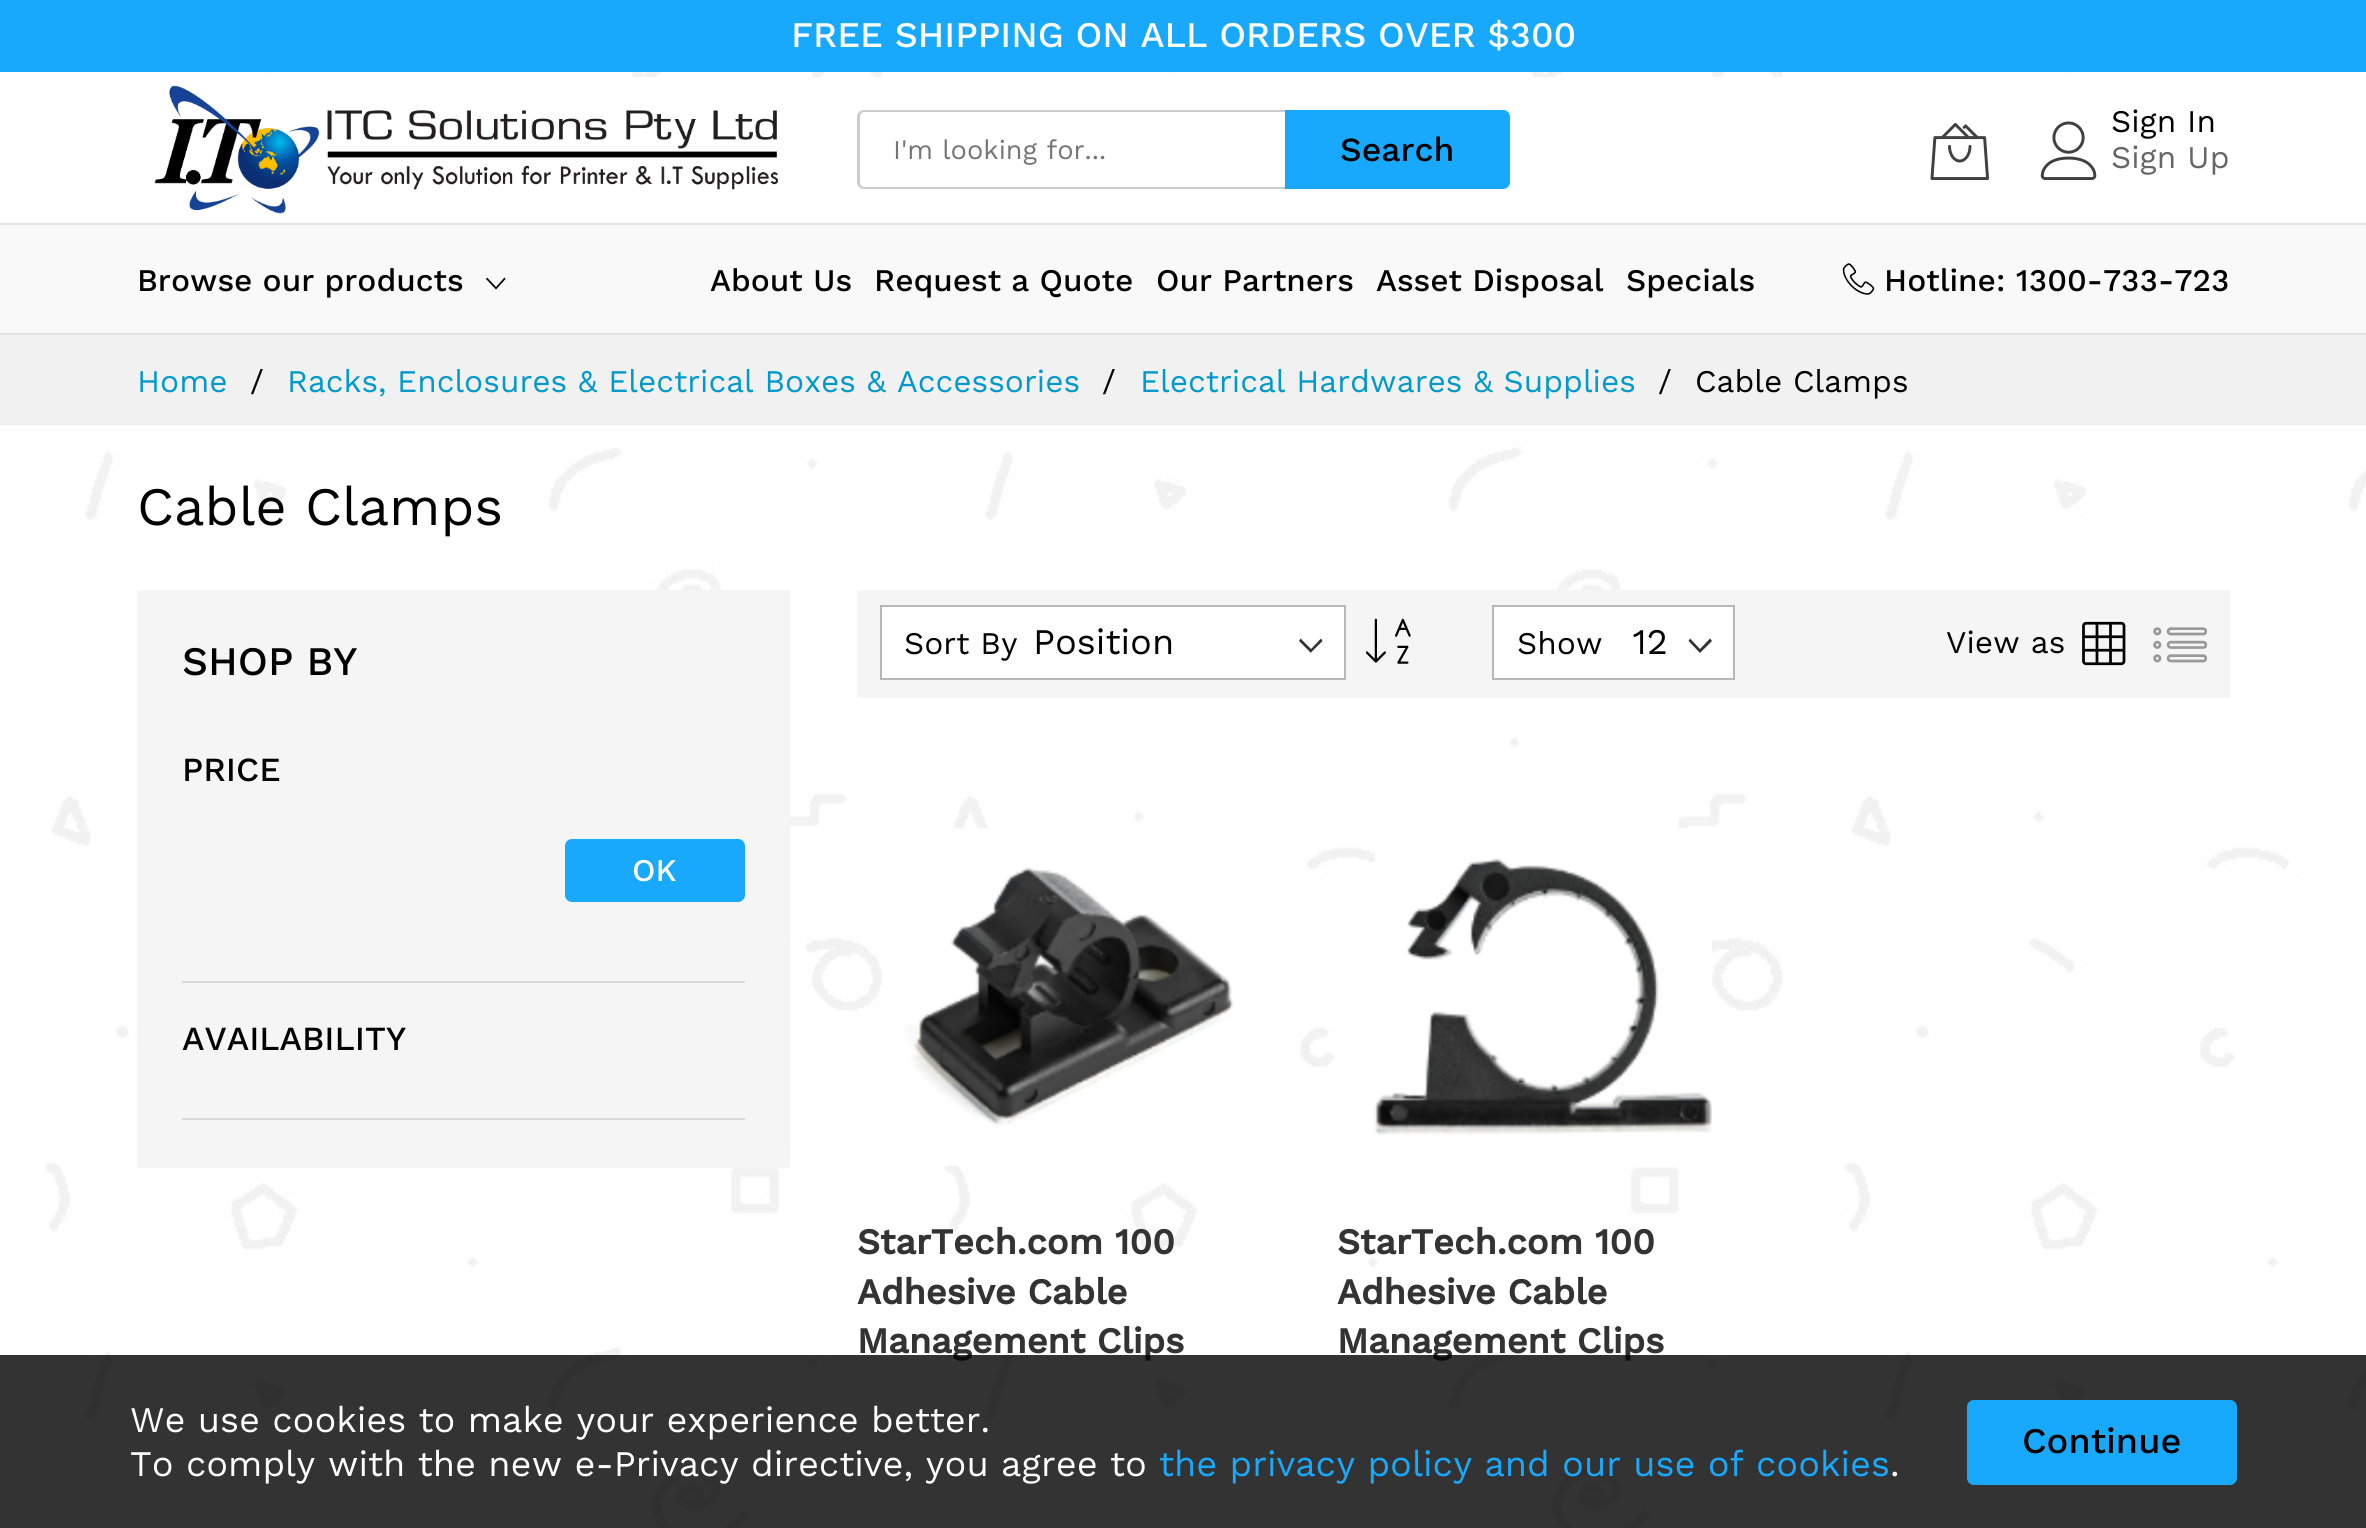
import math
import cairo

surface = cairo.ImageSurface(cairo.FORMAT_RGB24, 2366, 1528)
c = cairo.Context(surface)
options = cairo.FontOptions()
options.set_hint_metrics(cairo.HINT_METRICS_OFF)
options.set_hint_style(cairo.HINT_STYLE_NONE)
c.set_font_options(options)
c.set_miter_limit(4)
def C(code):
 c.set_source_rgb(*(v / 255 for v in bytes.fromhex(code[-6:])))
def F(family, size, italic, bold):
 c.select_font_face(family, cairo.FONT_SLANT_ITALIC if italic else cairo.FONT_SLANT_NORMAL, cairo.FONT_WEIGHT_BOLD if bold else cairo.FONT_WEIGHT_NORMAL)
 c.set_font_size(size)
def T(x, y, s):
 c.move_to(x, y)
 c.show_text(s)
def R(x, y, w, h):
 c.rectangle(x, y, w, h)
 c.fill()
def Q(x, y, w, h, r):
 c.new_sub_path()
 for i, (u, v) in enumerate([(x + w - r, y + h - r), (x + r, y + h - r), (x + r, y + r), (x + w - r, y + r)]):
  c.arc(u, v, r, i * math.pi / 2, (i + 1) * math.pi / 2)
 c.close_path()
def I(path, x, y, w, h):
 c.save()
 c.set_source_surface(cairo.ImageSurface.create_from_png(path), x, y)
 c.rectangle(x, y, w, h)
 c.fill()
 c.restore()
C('ffffff')
c.paint()
I('1.png',45,72,2321,1456)
C('19a9fc')
R(0,0,2366,72)
F('Work Sans Medium',36,0,0)
C('ffffff')
T(791,47,'FREE SHIPPING ON ALL ORDERS OVER $300')
R(116,77,2119,146)
C('cccccc')
c.set_fill_rule(cairo.FILL_RULE_EVEN_ODD)
c.new_path()
c.move_to(864,110)
c.line_to(1285,110)
c.line_to(1285,189)
c.line_to(864,189)
c.curve_to(860,189,857,186,857,182)
c.line_to(857,117)
c.curve_to(857,113,860,110,864,110)
c.close_path()
c.move_to(864,112)
c.line_to(1285,112)
c.line_to(1285,187)
c.line_to(864,187)
c.curve_to(862,187,860,185,860,182)
c.line_to(860,117)
c.curve_to(860,115,862,112,864,112)
c.close_path()
c.fill()
F('Work Sans',27,0,0)
C('757575')
T(893,159,'I\'m looking for...')
C('19a9fc')
c.new_path()
c.move_to(1285,110)
c.line_to(1503,110)
c.curve_to(1507,110,1510,113,1510,117)
c.line_to(1510,182)
c.curve_to(1510,186,1507,189,1503,189)
c.line_to(1285,189)
c.close_path()
c.fill()
F('Work Sans Medium',33.75,0,0)
C('000000')
T(1340,161,'Search')
I('2.png',1930,123,59,57)
I('3.png',2040,121,57,59)
F('Work Sans',31.5,0,0)
T(2111,132,'Sign In')
C('666666')
T(2111,168,'Sign Up')
I('4.png',154,85,624,129)
C('f9f9f9')
R(0,225,2366,108)
F('Work Sans Medium',31.5,0,0)
C('000000')
T(137,291,'Browse our products')
c.set_fill_rule(cairo.FILL_RULE_WINDING)
c.new_path()
c.move_to(504.5,277.5)
c.line_to(505.5,279)
c.line_to(496,289.5)
c.line_to(486,279)
c.line_to(487,277.5)
c.line_to(496,287)
c.close_path()
c.fill()
C('e3e3e3')
R(0,223,2366,2)
R(0,333,2366,2)
C('000000')
T(710,291,'About Us')
T(874,291,'Request a Quote')
T(1156,291,'Our Partners')
T(1376,291,'Asset Disposal')
T(1626,291,'Specials')
I('5.png',1842,263,33,32)
T(1884,291,'Hotline: 1300-733-723')
C('f1f1f1')
R(0,335,2366,90)
F('Work Sans',31.5,0,0)
C('0099cc')
T(137,392,'Home')
C('000000')
T(250,392,'/')
C('0099cc')
T(287,392,'Racks, Enclosures & Electrical Boxes & Accessories')
C('000000')
T(1102,392,'/')
C('0099cc')
T(1140,392,'Electrical Hardwares & Supplies')
C('000000')
T(1658,392,'/')
T(1695,392,'Cable Clamps')
F('Work Sans',54,0,0)
T(137,525,'Cable Clamps')
C('f5f5f5')
R(137,590,653,578)
F('Work Sans Medium',40.5,0,0)
C('000000')
T(182,675,'SHOP BY')
F('Work Sans Medium',33.75,0,0)
T(182,781,'PRICE')
C('d8d8d8')
R(182,981,563,2)
C('19a9fc')
Q(566,840,178,61,6)
c.fill_preserve()
c.stroke()
F('Work Sans Medium',31.5,0,0)
C('ffffff')
T(632,881,'OK')
F('Work Sans Medium',33.75,0,0)
C('000000')
T(182,1050,'AVAILABILITY')
C('d8d8d8')
R(182,1118,563,2)
C('f5f5f5')
R(857,590,1373,108)
C('ffffff')
c.rectangle(881,606,464,73)
c.fill_preserve()
C('b8b8b8')
c.stroke()
F('Work Sans',31.5,0,0)
C('000000')
T(904,654,'Sort By')
C('333333')
c.set_fill_rule(cairo.FILL_RULE_EVEN_ODD)
c.new_path()
c.move_to(1311,652.5)
c.line_to(1322.5,641)
c.line_to(1321,638.5)
c.line_to(1311,649)
c.line_to(1300.5,638.5)
c.line_to(1299,641)
c.line_to(1311,653)
c.close_path()
c.fill()
F('Work Sans',36,0,0)
C('000000')
T(1033,654,'Position')
I('6.png',1366,618,45,46)
C('ffffff')
c.rectangle(1493,606,241,73)
c.fill_preserve()
C('b8b8b8')
c.stroke()
F('Work Sans',31.5,0,0)
C('000000')
T(1517,654,'Show')
C('333333')
c.new_path()
c.move_to(1700.5,652.5)
c.line_to(1712,641)
c.line_to(1710,638.5)
c.line_to(1700,649)
c.line_to(1690,638.5)
c.line_to(1688.5,641)
c.line_to(1700,653)
c.close_path()
c.fill()
F('Work Sans',36,0,0)
C('000000')
T(1632,654,'12')
F('Work Sans',31.5,0,0)
T(1946,653,'View as')
I('7.png',2082,621,44,45)
I('8.png',2153,627,54,36)
I('9.png',904,828,330,338)
F('Work Sans',36,0,1)
C('333333')
T(857,1254,'StarTech.com 100')
T(857,1304,'Adhesive Cable')
T(857,1353,'Management Clips')
I('10.png',1374,828,338,307)
T(1337,1254,'StarTech.com 100')
T(1337,1304,'Adhesive Cable')
T(1337,1353,'Management Clips')
c.set_source_rgba(0,0,0,0.8)
R(0,1355,2366,173)
F('Work Sans',36,0,0)
C('ffffff')
T(130,1432,'We use cookies to make your experience better.')
T(130,1476,'To comply with the new e-Privacy directive, you agree to')
C('19a9fc')
T(1159,1476,'the privacy policy and our use of cookies')
C('ffffff')
T(1890,1476,'.')
C('19a9fc')
Q(1968,1401,268,83,6)
c.fill_preserve()
c.stroke()
F('Work Sans Medium',36,0,0)
C('000000')
T(2022,1453,'Continue')
surface.write_to_png('o.png')
